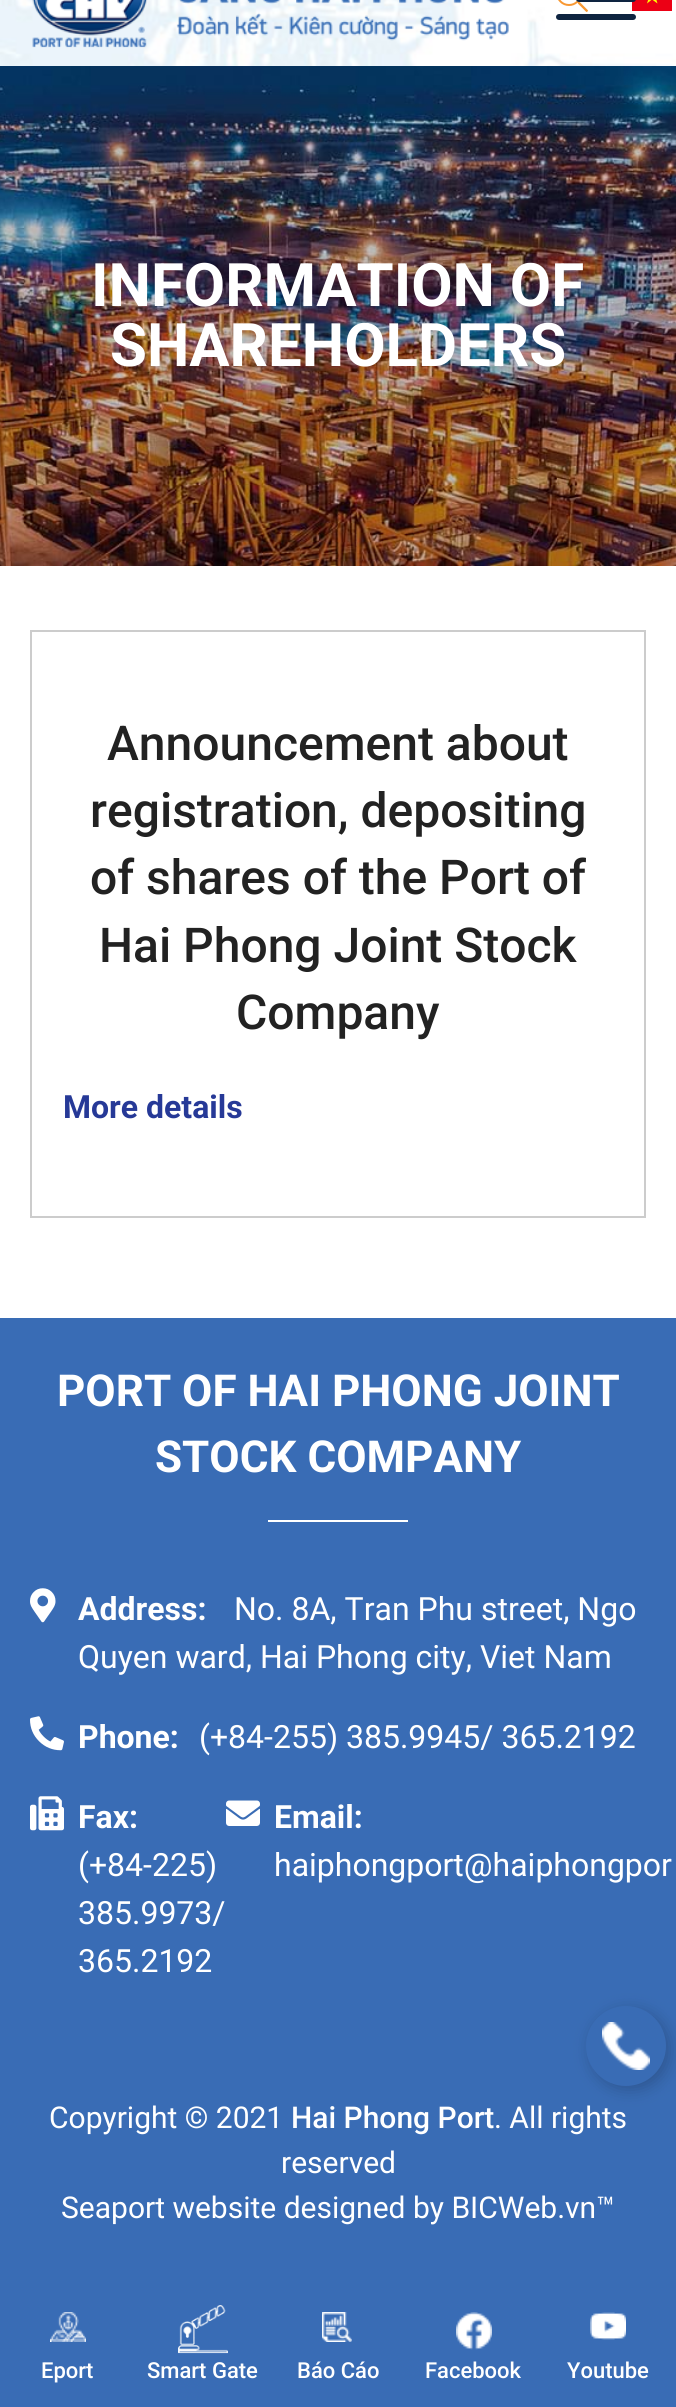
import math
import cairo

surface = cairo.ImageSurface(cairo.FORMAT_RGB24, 676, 2407)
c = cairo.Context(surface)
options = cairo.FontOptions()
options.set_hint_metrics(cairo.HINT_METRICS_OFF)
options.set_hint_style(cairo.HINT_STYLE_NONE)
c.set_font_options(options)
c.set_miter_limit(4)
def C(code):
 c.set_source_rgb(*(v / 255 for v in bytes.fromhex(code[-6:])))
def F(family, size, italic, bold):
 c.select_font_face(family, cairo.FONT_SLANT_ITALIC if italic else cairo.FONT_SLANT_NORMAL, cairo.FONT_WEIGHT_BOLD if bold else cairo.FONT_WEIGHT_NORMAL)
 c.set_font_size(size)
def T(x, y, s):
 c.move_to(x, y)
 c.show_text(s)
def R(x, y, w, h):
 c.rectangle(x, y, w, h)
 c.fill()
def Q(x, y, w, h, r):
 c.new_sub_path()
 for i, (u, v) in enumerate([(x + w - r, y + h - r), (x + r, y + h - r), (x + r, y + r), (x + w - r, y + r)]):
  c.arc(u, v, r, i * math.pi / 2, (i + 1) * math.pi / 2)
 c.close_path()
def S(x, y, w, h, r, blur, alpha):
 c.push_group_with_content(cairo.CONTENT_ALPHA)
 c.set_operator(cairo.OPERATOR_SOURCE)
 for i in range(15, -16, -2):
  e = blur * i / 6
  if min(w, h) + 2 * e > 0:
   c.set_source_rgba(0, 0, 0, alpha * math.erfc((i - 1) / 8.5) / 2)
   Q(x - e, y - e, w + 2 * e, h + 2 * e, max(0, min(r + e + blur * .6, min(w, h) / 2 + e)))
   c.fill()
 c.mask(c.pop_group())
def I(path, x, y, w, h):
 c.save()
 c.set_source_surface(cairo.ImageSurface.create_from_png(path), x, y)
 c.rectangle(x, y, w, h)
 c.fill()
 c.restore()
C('ffffff')
c.paint()
I('1.png',0,0,676,66)
I('2.png',32,0,477,48)
I('3.png',558,0,30,12)
C('ec0015')
R(632,0,40,11)
C('0e2440')
Q(576,-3,60,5,3)
c.fill()
Q(556,14,80,6,3)
c.fill()
C('ffff00')
c.set_fill_rule(cairo.FILL_RULE_EVEN_ODD)
c.new_path()
c.move_to(657.5,3.5)
c.line_to(652,-.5)
c.line_to(647,3.5)
c.line_to(649,-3)
c.line_to(643.5,-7)
c.line_to(650,-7)
c.line_to(652,-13.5)
c.line_to(654,-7)
c.line_to(660.5,-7)
c.line_to(655.5,-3)
c.close_path()
c.fill()
I('4.png',0,66,676,500)
F('Roboto',60,0,1)
C('ffffff')
T(91,306,'INFORMATION OF')
T(110,366,'SHAREHOLDERS')
c.rectangle(31,631,614,586)
C('cccccc')
c.stroke()
F('Roboto Medium',48,0,0)
C('222222')
T(107,760,'Announcement about')
T(90,827,'registration, depositing')
T(90,894,'of shares of the Port of')
T(99,962,'Hai Phong Joint Stock')
T(236,1029,'Company')
F('Roboto',32,0,1)
C('263997')
T(63,1118,'More details')
C('396cb5')
R(0,1318,676,970)
F('Roboto',44,0,1)
C('ffffff')
T(57,1406,'PORT OF HAI PHONG JOINT')
T(155,1472,'STOCK COMPANY')
R(268,1520,140,2)
I('5.png',30,1588,26,35)
F('Roboto',32,0,1)
T(78,1620,'Address:')
F('Roboto',32,0,0)
T(234,1620,'No. 8A, Tran Phu street, Ngo')
T(78,1668,'Quyen ward, Hai Phong city, Viet Nam')
I('6.png',30,1716,34,35)
F('Roboto',32,0,1)
T(78,1748,'Phone:')
F('Roboto',32,0,0)
T(199,1748,'(+84-255) 385.9945/ 365.2192')
I('7.png',30,1796,34,35)
F('Roboto',32,0,1)
T(78,1828,'Fax:')
F('Roboto',32,0,0)
T(78,1876,'(+84-225)')
T(78,1924,'385.9973/')
T(78,1972,'365.2192')
I('8.png',226,1800,34,26)
F('Roboto',32,0,1)
T(274,1828,'Email:')
F('Roboto',32,0,0)
T(274,1876,'haiphongport@haiphongpor')
F('Roboto',30,0,0)
T(49,2128,'Copyright © 2021')
F('Roboto Medium',30,0,0)
T(291,2128,'Hai Phong Port')
F('Roboto',30,0,0)
T(494,2128,'. All rights')
T(281,2173,'reserved')
T(61,2218,'Seaport website designed by BICWeb.vn™')
C('000000')
S(590,2010,80,80,40,8,.2)
C('396cb5')
c.arc(626,2046,40,0,2 * math.pi)
c.fill()
I('9.png',602,2022,48,48)
R(0,2288,676,119)
I('10.png',50,2312,36,30)
F('Roboto Medium',22,0,0)
C('ffffff')
T(41,2378,'Eport')
I('11.png',178,2305,50,49)
T(147,2378,'Smart Gate')
I('12.png',322,2312,30,30)
T(297,2378,'Báo Cáo')
I('13.png',456,2312,36,38)
T(425,2378,'Facebook')
I('14.png',590,2312,36,28)
T(567,2378,'Youtube')
surface.write_to_png('o.png')
